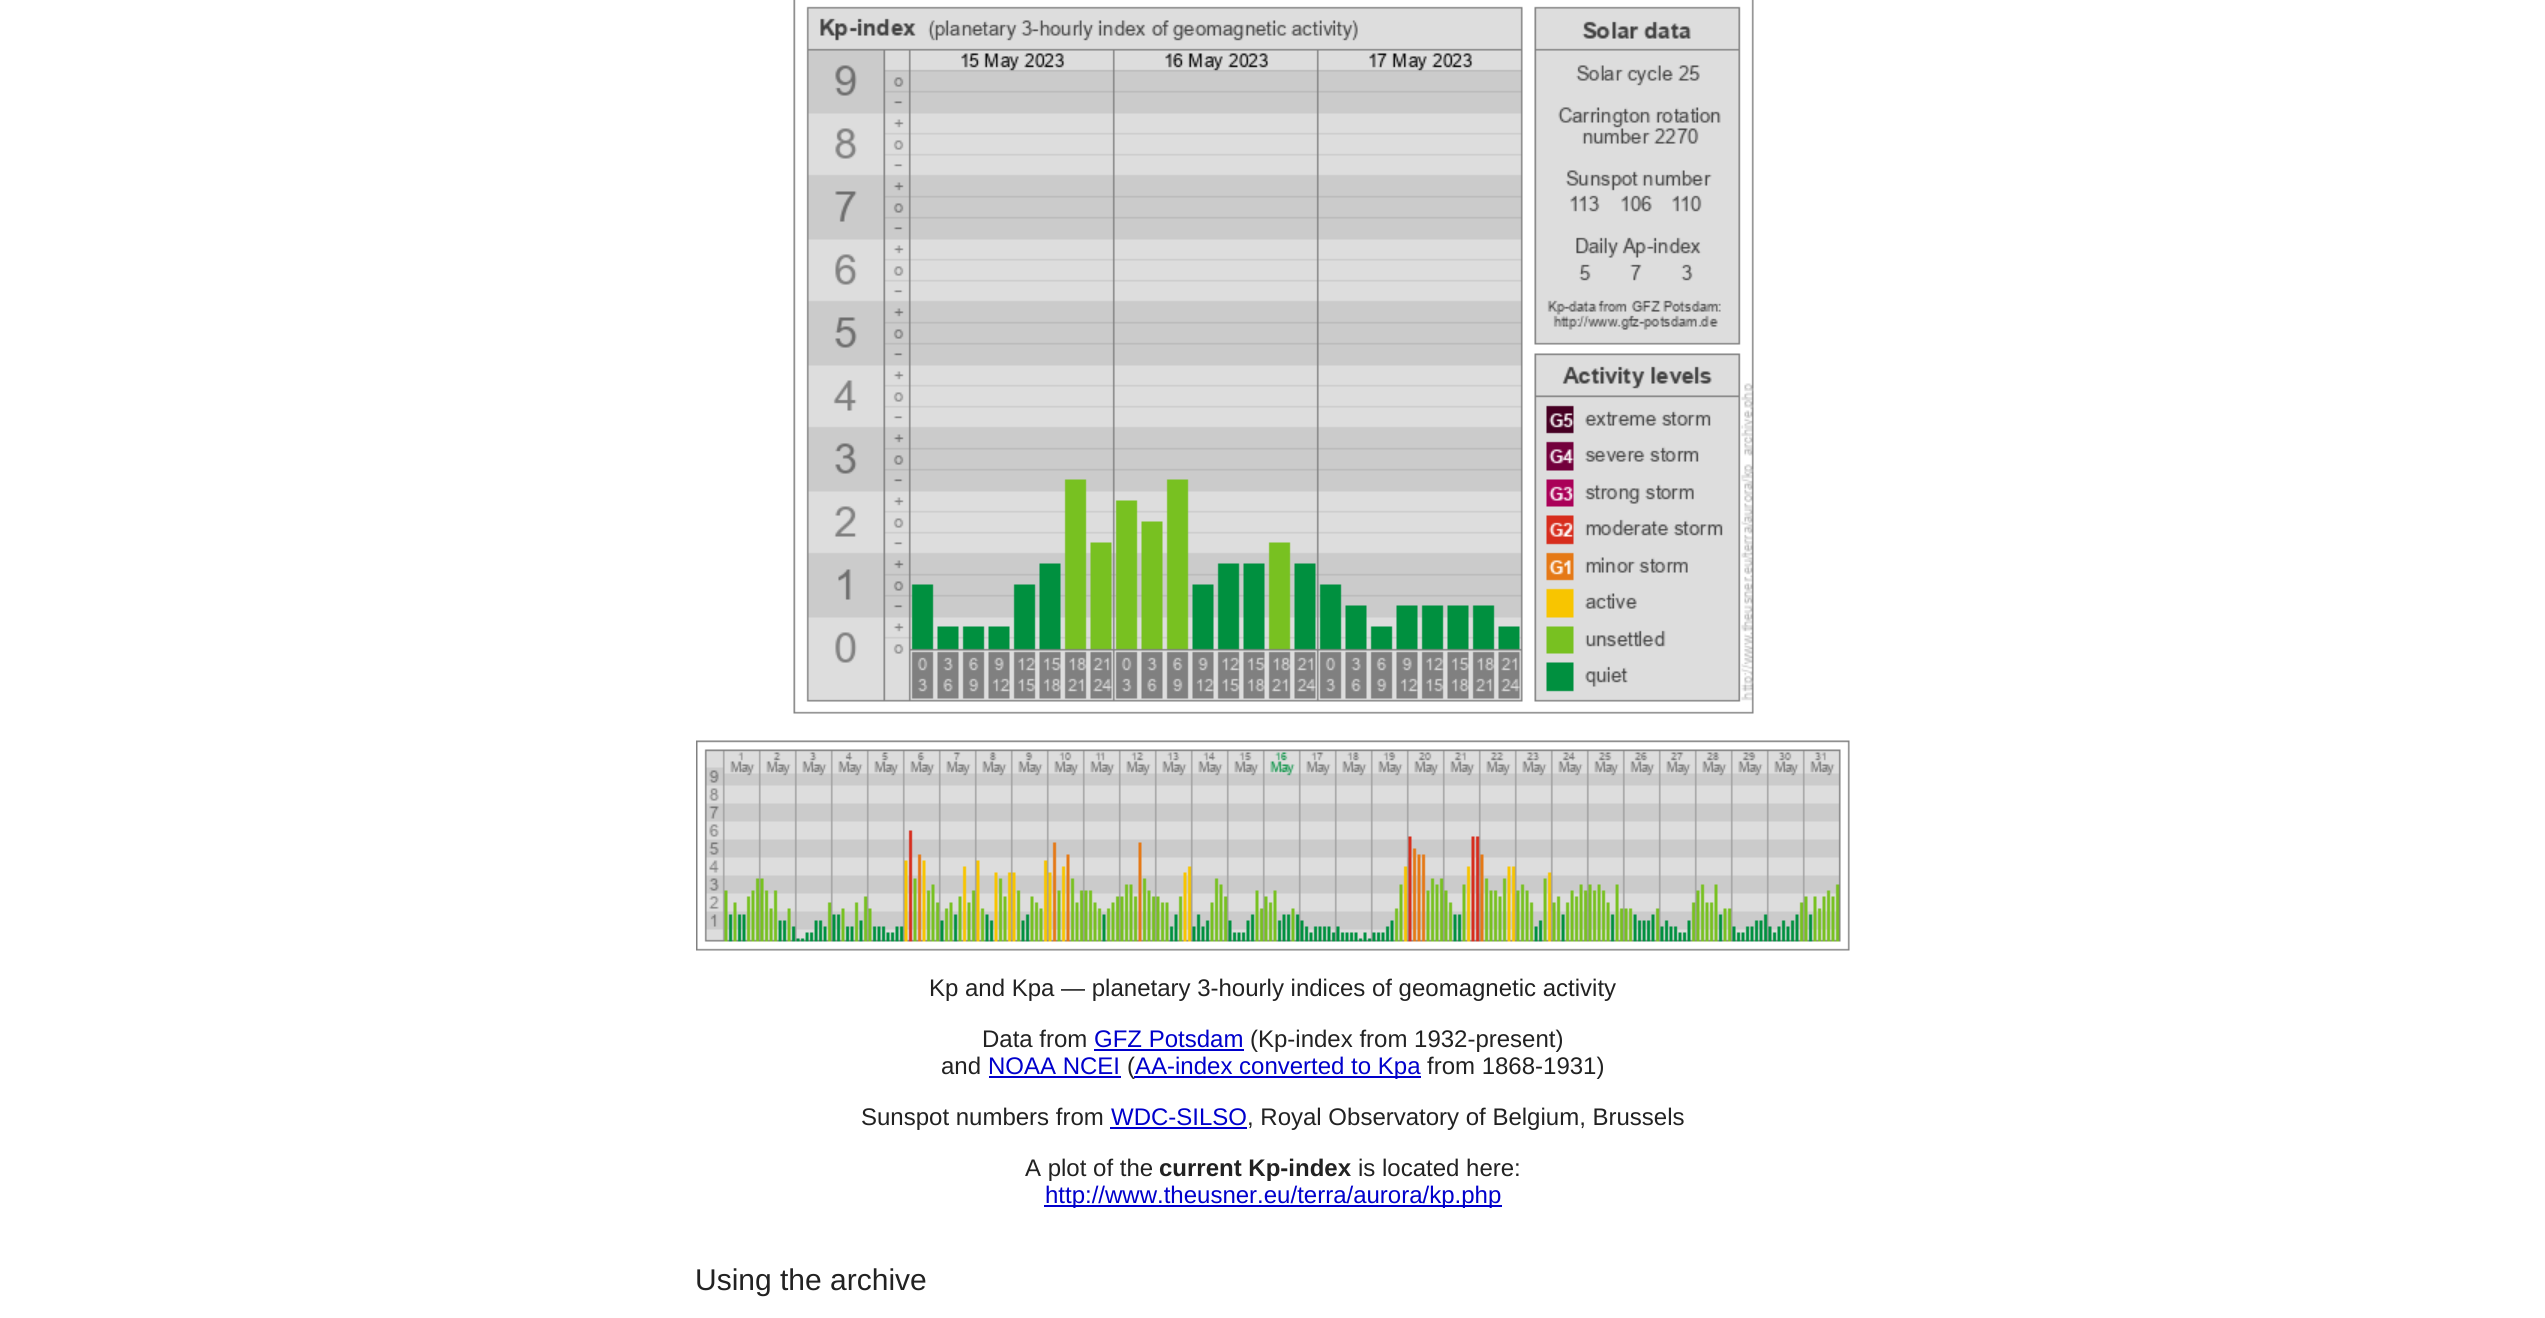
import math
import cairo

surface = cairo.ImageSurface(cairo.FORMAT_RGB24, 2545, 1318)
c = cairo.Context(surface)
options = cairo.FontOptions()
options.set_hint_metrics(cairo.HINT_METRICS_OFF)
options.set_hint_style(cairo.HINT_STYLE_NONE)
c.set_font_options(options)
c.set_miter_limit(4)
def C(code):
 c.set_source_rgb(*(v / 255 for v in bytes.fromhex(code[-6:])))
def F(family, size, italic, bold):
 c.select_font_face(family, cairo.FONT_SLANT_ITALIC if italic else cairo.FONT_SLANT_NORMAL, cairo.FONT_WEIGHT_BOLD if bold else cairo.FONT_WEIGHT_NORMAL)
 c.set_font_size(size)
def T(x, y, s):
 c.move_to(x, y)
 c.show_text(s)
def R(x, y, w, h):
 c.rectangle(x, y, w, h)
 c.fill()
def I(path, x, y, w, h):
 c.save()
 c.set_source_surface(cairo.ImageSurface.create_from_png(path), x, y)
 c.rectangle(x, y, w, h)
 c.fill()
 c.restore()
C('ffffff')
c.paint()
I('1.png',793,0,961,714)
I('2.png',696,740,1154,211)
F('Liberation Sans',24,0,0)
C('222222')
T(929,996,'Kp and Kpa — planetary 3-hourly indices of geomagnetic activity')
T(982,1047,'Data from')
C('0000cc')
T(1094,1047,'GFZ Potsdam')
R(1094,1049,150,2)
C('222222')
T(1250,1047,'(Kp-index from 1932-present)')
T(941,1074,'and')
C('0000cc')
T(988,1074,'NOAA NCEI')
R(989,1076,132,2)
C('222222')
T(1127,1074,'(')
C('0000cc')
R(1134,1076,287,2)
T(1135,1074,'AA-index converted to Kpa')
C('222222')
T(1427,1074,'from 1868-1931)')
T(861,1125,'Sunspot numbers from')
C('0000cc')
T(1111,1125,'WDC-SILSO')
R(1110,1127,137,2)
C('222222')
T(1247,1125,', Royal Observatory of Belgium, Brussels')
T(1025,1176,'A plot of the')
F('Liberation Sans',24,0,1)
T(1159,1176,'current Kp-index')
F('Liberation Sans',24,0,0)
T(1358,1176,'is located here:')
C('0000cc')
R(1044,1205,458,2)
T(1045,1203,'http://www.theusner.eu/terra/aurora/kp.php')
F('Liberation Sans',30,0,0)
C('222222')
T(695,1290,'Using the archive')
surface.write_to_png('o.png')
